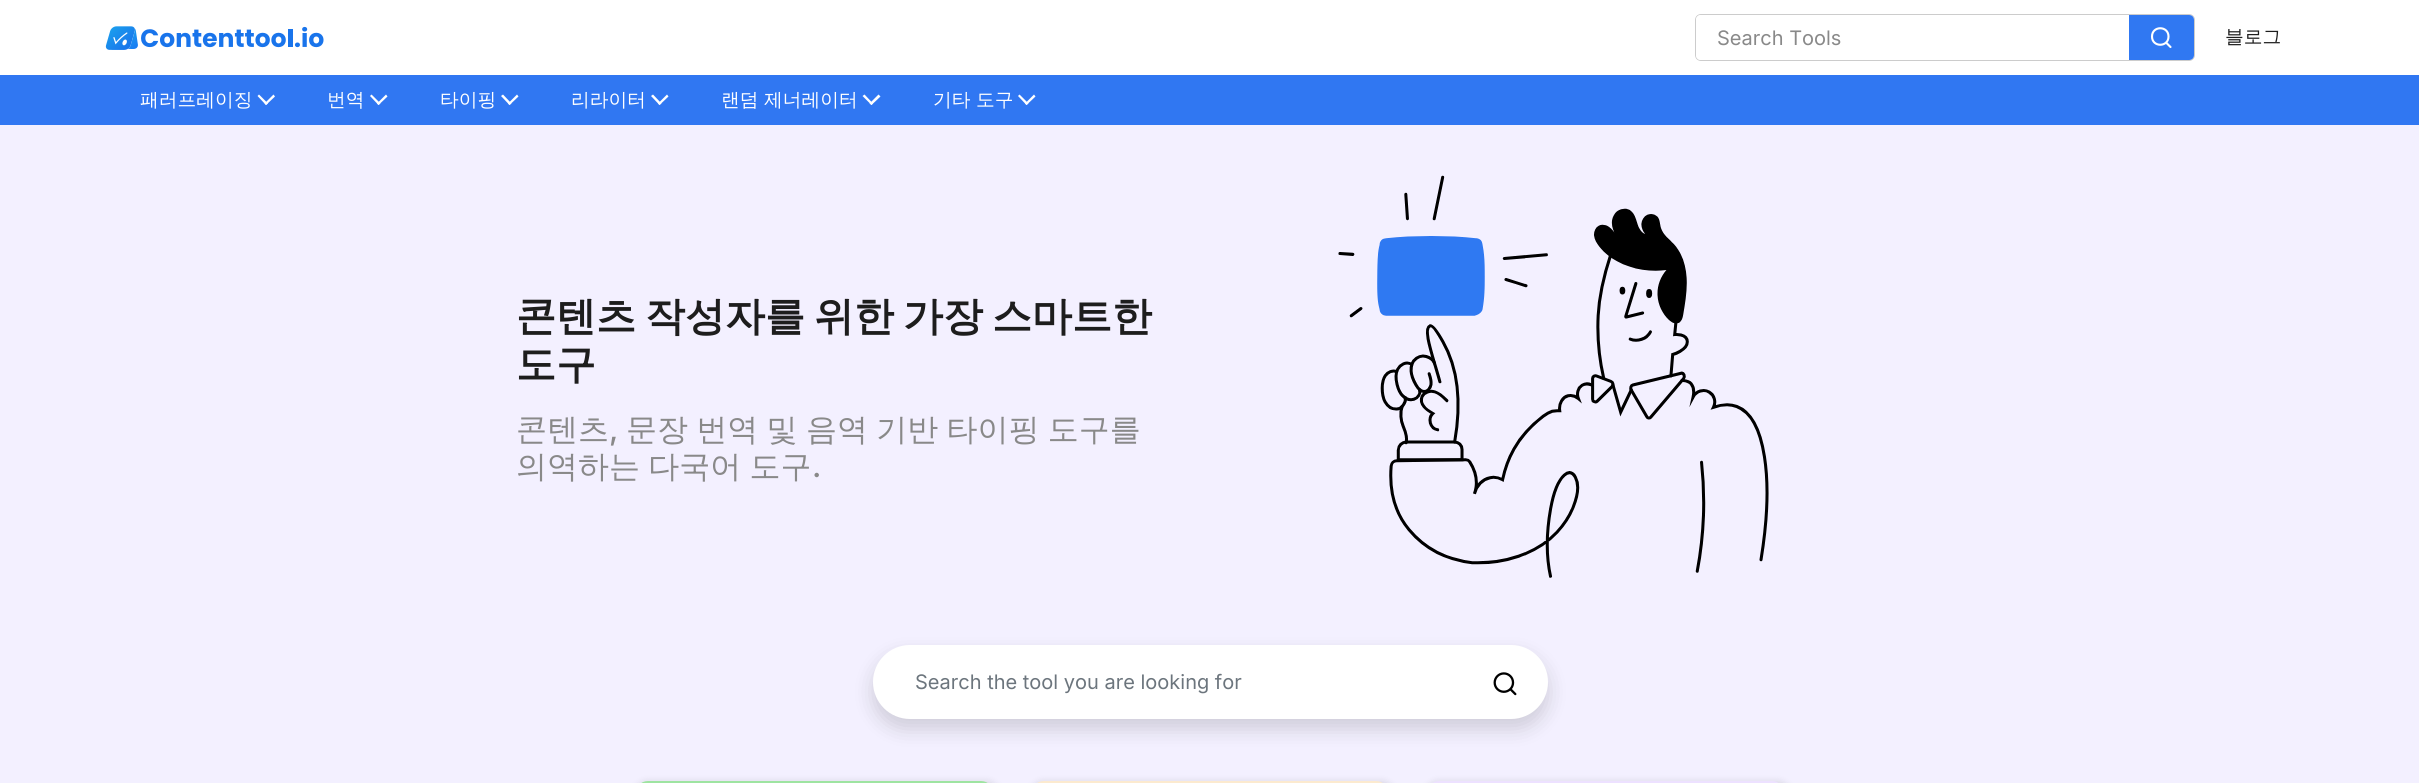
import math
import cairo

surface = cairo.ImageSurface(cairo.FORMAT_RGB24, 2419, 783)
c = cairo.Context(surface)
options = cairo.FontOptions()
options.set_hint_metrics(cairo.HINT_METRICS_OFF)
options.set_hint_style(cairo.HINT_STYLE_NONE)
c.set_font_options(options)
c.set_miter_limit(4)
def C(code):
 c.set_source_rgb(*(v / 255 for v in bytes.fromhex(code[-6:])))
def F(family, size, italic, bold):
 c.select_font_face(family, cairo.FONT_SLANT_ITALIC if italic else cairo.FONT_SLANT_NORMAL, cairo.FONT_WEIGHT_BOLD if bold else cairo.FONT_WEIGHT_NORMAL)
 c.set_font_size(size)
def T(x, y, s):
 c.move_to(x, y)
 c.show_text(s)
def L(x, y, s, letter, word):
 c.move_to(x, y)
 for ch in s:
  c.show_text(ch)
  c.rel_move_to(letter + word * (ch == ' '), 0)
def R(x, y, w, h):
 c.rectangle(x, y, w, h)
 c.fill()
def Q(x, y, w, h, r):
 c.new_sub_path()
 for i, (u, v) in enumerate([(x + w - r, y + h - r), (x + r, y + h - r), (x + r, y + r), (x + w - r, y + r)]):
  c.arc(u, v, r, i * math.pi / 2, (i + 1) * math.pi / 2)
 c.close_path()
def S(x, y, w, h, r, blur, alpha):
 c.push_group_with_content(cairo.CONTENT_ALPHA)
 c.set_operator(cairo.OPERATOR_SOURCE)
 for i in range(15, -16, -2):
  e = blur * i / 6
  if min(w, h) + 2 * e > 0:
   c.set_source_rgba(0, 0, 0, alpha * math.erfc((i - 1) / 8.5) / 2)
   Q(x - e, y - e, w + 2 * e, h + 2 * e, max(0, min(r + e + blur * .6, min(w, h) / 2 + e)))
   c.fill()
 c.mask(c.pop_group())
def I(path, x, y, w, h):
 c.save()
 c.set_source_surface(cairo.ImageSurface.create_from_png(path), x, y)
 c.rectangle(x, y, w, h)
 c.fill()
 c.restore()
C('ffffff')
c.paint()
gradient = cairo.RadialGradient(1210,2024,0,1210,2024,2358)
gradient.add_color_stop_rgba(0,0.961,0.992,0.988,1)
gradient.add_color_stop_rgba(.5,0.953,0.941,1,1)
c.set_source(gradient)
R(0,125,2419,658)
I('1.png',105,26,219,24)
Q(1695.5,14.5,499,46,5.5)
C('cccccc')
c.set_line_width(1)
c.stroke()
C('ffffff')
c.new_path()
c.move_to(1701,15)
c.line_to(2129,15)
c.line_to(2129,60)
c.line_to(1701,60)
c.curve_to(1698,60,1696,58,1696,55)
c.line_to(1696,20)
c.curve_to(1696,17,1698,15,1701,15)
c.close_path()
c.fill()
F('Inter',20,0,0)
C('898989')
T(1717,45,'Search Tools')
C('3078f2')
c.new_path()
c.move_to(2129,15)
c.line_to(2189,15)
c.curve_to(2192,15,2194,17,2194,20)
c.line_to(2194,55)
c.curve_to(2194,58,2192,60,2189,60)
c.line_to(2129,60)
c.close_path()
c.fill()
c.new_path()
c.move_to(2166,42.5)
c.line_to(2170.5,47)
c.move_to(2168.5,36.5)
c.curve_to(2168.5,47.5,2152,47.5,2152,36.5)
c.curve_to(2152,25.5,2168.5,25.5,2168.5,36.5)
c.close_path()
C('ffffff')
c.set_line_width(2.1)
c.set_line_cap(cairo.LINE_CAP_ROUND)
c.set_line_join(cairo.LINE_JOIN_ROUND)
c.stroke()
F('WenQuanYi Zen Hei Medium',18.75,0,0)
C('1d1d1d')
T(2225,43,'블로그')
C('3077f2')
R(0,75,2419,50)
C('ffffff')
T(140,106,'패러프레이징')
c.new_path()
c.move_to(273.5,94.5)
c.line_to(275,96.5)
c.line_to(266,105)
c.line_to(264.5,103.5)
c.close_path()
c.fill()
c.new_path()
c.move_to(259,94.5)
c.line_to(268,103.5)
c.line_to(266,105)
c.line_to(257.5,96)
c.close_path()
c.fill()
T(327,106,'번역')
c.new_path()
c.move_to(386,94.5)
c.line_to(387.5,96.5)
c.line_to(378.5,105)
c.line_to(377,103.5)
c.close_path()
c.fill()
c.new_path()
c.move_to(371.5,94.5)
c.line_to(380.5,103.5)
c.line_to(378.5,105)
c.line_to(370,96)
c.close_path()
c.fill()
T(440,106,'타이핑')
c.new_path()
c.move_to(517,94.5)
c.line_to(518.5,96.5)
c.line_to(509.5,105)
c.line_to(508,103.5)
c.close_path()
c.fill()
c.new_path()
c.move_to(503,94.5)
c.line_to(511.5,103.5)
c.line_to(509.5,105)
c.line_to(501,96)
c.close_path()
c.fill()
T(571,106,'리라이터')
c.new_path()
c.move_to(667,94.5)
c.line_to(668.5,96.5)
c.line_to(659.5,105)
c.line_to(658,103.5)
c.close_path()
c.fill()
c.new_path()
c.move_to(653,94.5)
c.line_to(661.5,103.5)
c.line_to(659.5,105)
c.line_to(651,96)
c.close_path()
c.fill()
T(721,106,'랜덤 제너레이터')
c.new_path()
c.move_to(878.5,94.5)
c.line_to(880.5,96.5)
c.line_to(871.5,105)
c.line_to(869.5,103.5)
c.close_path()
c.fill()
c.new_path()
c.move_to(864.5,94.5)
c.line_to(873,103.5)
c.line_to(871.5,105)
c.line_to(862.5,96)
c.close_path()
c.fill()
T(933,106,'기타 도구')
c.new_path()
c.move_to(1034,94.5)
c.line_to(1035.5,96.5)
c.line_to(1026.5,105)
c.line_to(1025,103.5)
c.close_path()
c.fill()
c.new_path()
c.move_to(1019.5,94.5)
c.line_to(1028.5,103.5)
c.line_to(1026.5,105)
c.line_to(1018,96)
c.close_path()
c.fill()
F('WenQuanYi Zen Hei',40,0,1)
C('1d1d1d')
L(516,330,'콘텐츠 작성자를 위한 가장 스마트한',0,-3)
T(516,378,'도구')
F('WenQuanYi Zen Hei Medium',31,0,0)
C('898989')
T(516,440,'콘텐츠')
F('Inter Medium',31,0,0)
T(609,440,',')
F('WenQuanYi Zen Hei Medium',31,0,0)
L(626,440,'문장 번역 및 음역 기반 타이핑 도구를',0,-1)
L(516,477,'의역하는 다국어 도구',0,-1)
F('Inter Medium',31,0,0)
T(812,477,'.')
I('2.png',1338,175,431,403)
C('000000')
S(873,655,675,74,37,10,.15)
C('ffffff')
Q(873,645,675,74,37)
c.fill()
F('Inter',20,0,0)
C('6c757d')
T(915,689,'Search the tool you are looking for')
I('3.png',1493,672,24,24)
C('000000')
S(635,783,364,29,15,4.5,.16)
C('9ee4a1')
c.new_path()
c.move_to(648,781)
c.line_to(981,781)
c.curve_to(988,781,994,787,994,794)
c.line_to(994,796)
c.line_to(635,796)
c.line_to(635,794)
c.curve_to(635,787,641,781,648,781)
c.close_path()
c.fill()
C('000000')
S(1031,783,363,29,15,4.5,.16)
C('fceacf')
c.new_path()
c.move_to(1044,781)
c.line_to(1376,781)
c.curve_to(1383,781,1389,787,1389,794)
c.line_to(1389,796)
c.line_to(1031,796)
c.line_to(1031,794)
c.curve_to(1031,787,1037,781,1044,781)
c.close_path()
c.fill()
C('000000')
S(1426,783,364,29,15,4.5,.16)
C('ede1ff')
c.new_path()
c.move_to(1439,781)
c.line_to(1772,781)
c.curve_to(1779,781,1785,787,1785,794)
c.line_to(1785,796)
c.line_to(1426,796)
c.line_to(1426,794)
c.curve_to(1426,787,1432,781,1439,781)
c.close_path()
c.fill()
surface.write_to_png('o.png')
